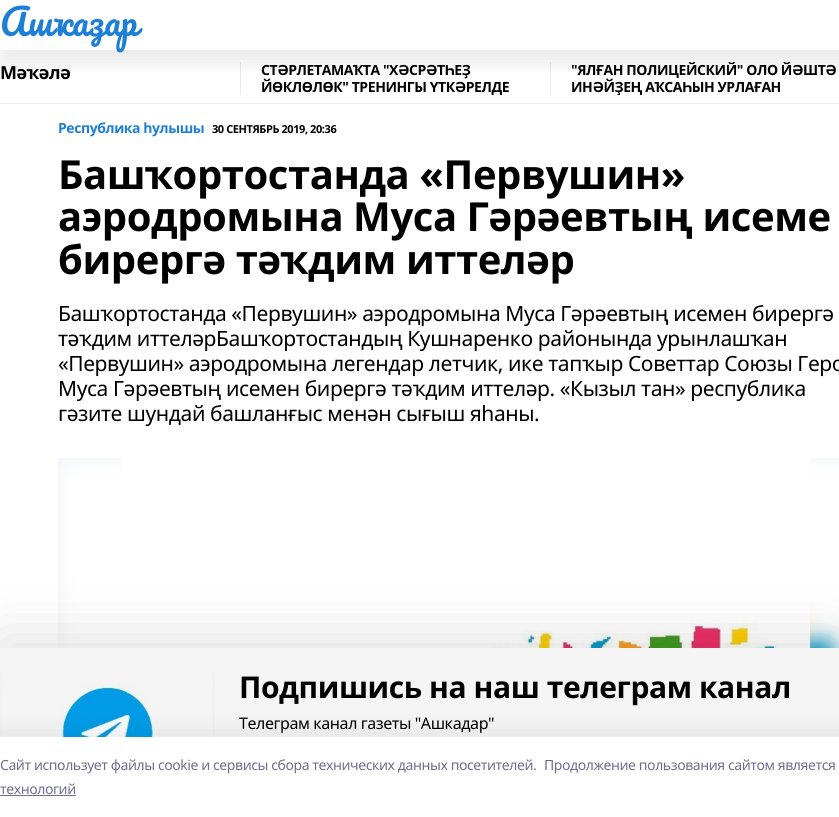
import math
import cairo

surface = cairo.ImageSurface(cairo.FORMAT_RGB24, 839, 817)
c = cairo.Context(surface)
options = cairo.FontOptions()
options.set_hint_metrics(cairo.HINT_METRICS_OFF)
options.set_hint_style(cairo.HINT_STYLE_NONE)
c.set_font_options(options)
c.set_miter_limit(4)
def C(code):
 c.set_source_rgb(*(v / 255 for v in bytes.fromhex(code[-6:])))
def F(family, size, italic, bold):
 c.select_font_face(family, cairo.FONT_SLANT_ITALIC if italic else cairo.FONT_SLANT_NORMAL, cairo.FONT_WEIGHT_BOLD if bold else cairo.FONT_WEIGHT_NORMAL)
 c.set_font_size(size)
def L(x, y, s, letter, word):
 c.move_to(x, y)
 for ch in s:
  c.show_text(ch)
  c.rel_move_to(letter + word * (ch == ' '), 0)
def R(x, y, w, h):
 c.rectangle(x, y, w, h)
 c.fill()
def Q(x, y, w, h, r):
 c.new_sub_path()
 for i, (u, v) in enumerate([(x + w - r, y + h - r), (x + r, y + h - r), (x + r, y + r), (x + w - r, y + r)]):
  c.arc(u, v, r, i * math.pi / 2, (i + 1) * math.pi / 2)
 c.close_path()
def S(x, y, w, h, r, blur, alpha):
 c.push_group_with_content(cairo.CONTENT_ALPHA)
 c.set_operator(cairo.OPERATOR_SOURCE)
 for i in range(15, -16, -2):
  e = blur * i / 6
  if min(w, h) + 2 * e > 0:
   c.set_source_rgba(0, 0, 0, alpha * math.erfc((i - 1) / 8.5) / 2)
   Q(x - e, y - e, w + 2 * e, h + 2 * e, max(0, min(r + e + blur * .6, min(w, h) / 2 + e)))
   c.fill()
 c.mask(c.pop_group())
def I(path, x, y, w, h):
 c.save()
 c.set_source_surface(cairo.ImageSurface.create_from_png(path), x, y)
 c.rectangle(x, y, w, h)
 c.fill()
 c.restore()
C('ffffff')
c.paint()
C('eaeaea')
R(240,62,1,33)
R(550,62,1,33)
c.save()
c.rectangle(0,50,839,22)
c.clip()
C('000000')
S(0,15,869,50,0,10,.08)
c.restore()
F('Pacifico',36,0,0)
C('1d7fd6')
L(0,36,'Ашҡаҙар',-.42,0)
C('eaeaea')
R(0,103,839,1)
F('Noto Sans',18,0,1)
C('000000')
L(0,79,'Мәҡәлә',-.42,0)
F('Noto Sans',14,0,1)
L(261,75,'СТӘРЛЕТАМАҠТА "ХӘСРӘТҺЕҘ',-.42,0)
L(261,92,'ЙӨКЛӨЛӨК" ТРЕНИНГЫ ҮТКӘРЕЛДЕ',-.42,0)
c.save()
c.rectangle(551,62,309,33)
c.clip()
L(571,75,'"ЯЛҒАН ПОЛИЦЕЙСКИЙ" ОЛО ЙӘШТӘ',-.42,0)
L(571,92,'ИНӘЙҘЕҢ АҠСАҺЫН УРЛАҒАН',-.42,0)
c.restore()
C('1d7fd6')
L(58,133,'Республика һулышы',-.42,0)
F('Noto Sans',11,0,1)
C('000000')
L(212,133,'30 СЕНТЯБРЬ 2019, 20:36',-.42,0)
F('Noto Sans',40,0,1)
L(58,189,'Башҡортостанда «Первушин»',-.42,0)
L(58,231,'аэродромына Муса Гәрәевтың исеме',-.42,0)
L(58,274,'бирергә тәҡдим иттеләр',-.42,0)
F('Noto Sans',21,0,0)
L(58,321,'Башҡортостанда «Первушин» аэродромына Муса Гәрәевтың исемен бирергә',-.42,0)
L(58,346,'тәҡдим иттеләрБашҡортостандың Кушнаренко районында урынлашҡан',-.42,0)
L(58,371,'«Первушин» аэродромына легендар летчик, ике тапҡыр Советтар Союзы Геро',-.42,0)
L(58,396,'Муса Гәрәевтың исемен бирергә тәҡдим иттеләр. «Кызыл тан» республика',-.42,0)
L(58,421,'гәзите шундай башланғыс менән сығыш яһаны.',-.42,0)
C('edf2f7')
R(58,458,781,190)
I('1.png',58,458,781,190)
I('2.png',122,458,688,190)
C('000000')
S(0,638,839,169,0,30,.12)
C('f5f5f5')
R(0,648,839,89)
C('edf2f7')
R(0,672,215,65)
I('3.png',1,672,213,65)
I('4.png',4,672,207,65)
F('Noto Sans',30,0,1)
C('000000')
L(239,698,'Подпишись на наш телеграм канал',-.42,0)
F('Noto Sans',16,0,0)
L(239,729,'Телеграм канал газеты "Ашкадар"',-.42,0)
C('14142b')
S(0,731,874,80,0,11.5,.08)
C('ffffff')
R(0,737,839,80)
F('Noto Sans',14,0,0)
C('6f6c90')
L(0,770,'Cайт использует файлы cookie и сервисы сбора технических данных посетителей.',-.42,0)
L(544,770,'Продолжение пользования сайтом является',-.42,0)
L(0,794,'технологий',-.42,0)
R(0,795,76,1)
surface.write_to_png('o.png')
